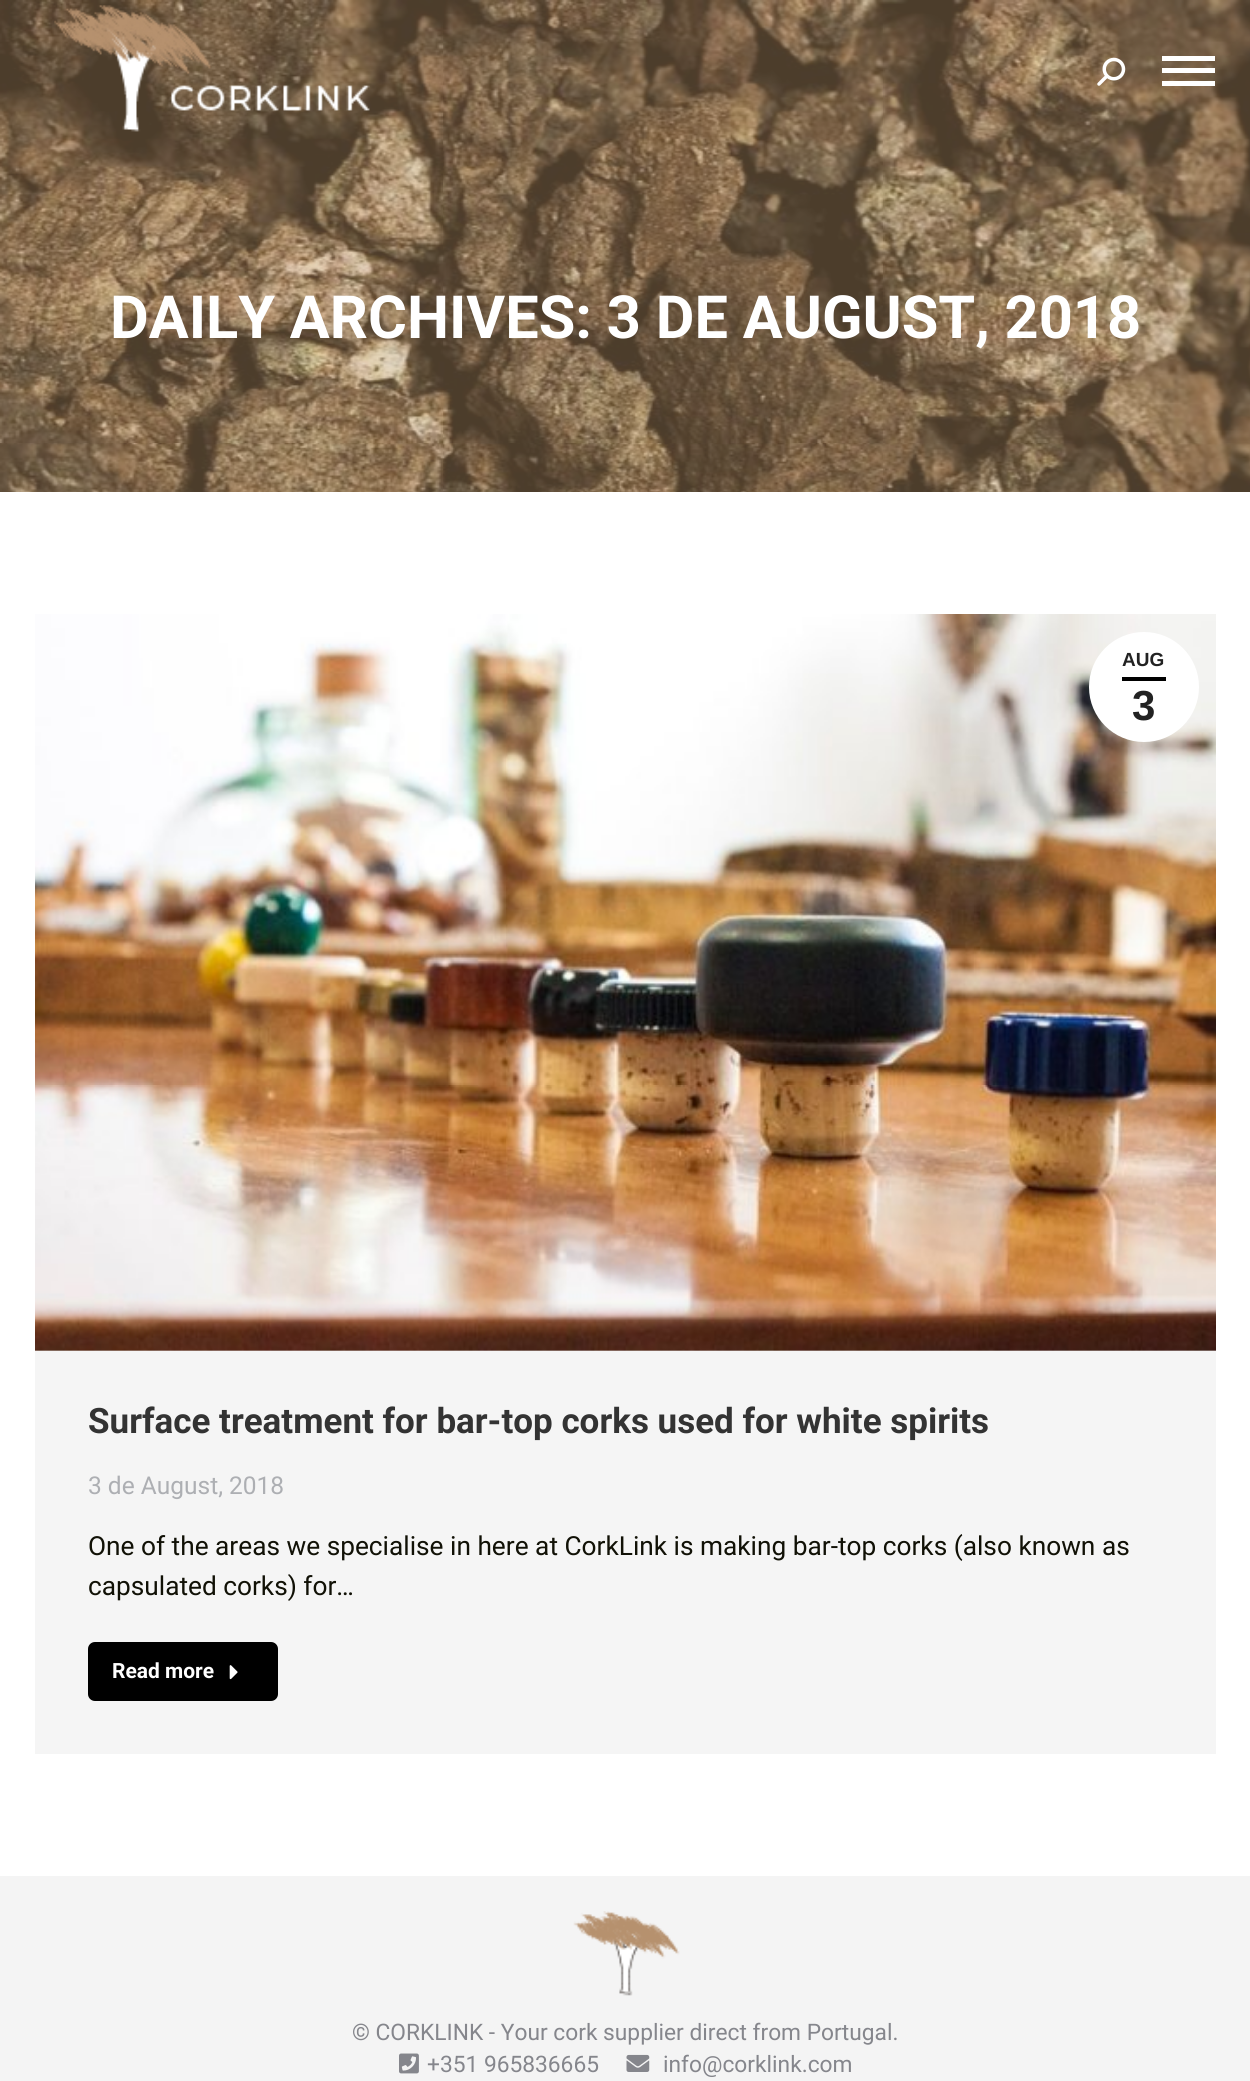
import math
import cairo

surface = cairo.ImageSurface(cairo.FORMAT_RGB24, 1250, 2081)
c = cairo.Context(surface)
options = cairo.FontOptions()
options.set_hint_metrics(cairo.HINT_METRICS_OFF)
options.set_hint_style(cairo.HINT_STYLE_NONE)
c.set_font_options(options)
c.set_miter_limit(4)
def C(code):
 c.set_source_rgb(*(v / 255 for v in bytes.fromhex(code[-6:])))
def F(family, size, italic, bold):
 c.select_font_face(family, cairo.FONT_SLANT_ITALIC if italic else cairo.FONT_SLANT_NORMAL, cairo.FONT_WEIGHT_BOLD if bold else cairo.FONT_WEIGHT_NORMAL)
 c.set_font_size(size)
def T(x, y, s):
 c.move_to(x, y)
 c.show_text(s)
def R(x, y, w, h):
 c.rectangle(x, y, w, h)
 c.fill()
def Q(x, y, w, h, r):
 c.new_sub_path()
 for i, (u, v) in enumerate([(x + w - r, y + h - r), (x + r, y + h - r), (x + r, y + r), (x + w - r, y + r)]):
  c.arc(u, v, r, i * math.pi / 2, (i + 1) * math.pi / 2)
 c.close_path()
def I(path, x, y, w, h):
 c.save()
 c.set_source_surface(cairo.ImageSurface.create_from_png(path), x, y)
 c.rectangle(x, y, w, h)
 c.fill()
 c.restore()
C('ffffff')
c.paint()
I('3.png',0,0,1250,492)
I('1.png',54,5,316,127)
I('2.png',1097,57,29,29)
C('ffffff')
R(1162,56,53,5)
R(1162,68,53,5)
R(1162,81,53,5)
F('Roboto',59.5,0,1)
T(110,338,'DAILY ARCHIVES: 3 DE AUGUST, 2018')
C('f5f5f5')
R(35,1350,1181,404)
I('4.png',35,614,1181,737)
C('ffffff')
c.arc(1144,687,55,0,2 * math.pi)
c.fill()
F('Liberation Sans',19,0,1)
C('222222')
T(1122,666,'AUG')
C('000000')
R(1122,677,44,4)
F('Liberation Sans',42,0,1)
C('222222')
T(1132,720,'3')
F('Roboto',35,0,1)
C('333333')
T(88,1433,'Surface treatment for bar-top corks used for white spirits')
F('Roboto',24.5,0,0)
C('adafb3')
T(88,1494,'3 de August, 2018')
F('Roboto',26.25,0,0)
C('111106')
T(88,1555,'One of the areas we specialise in here at CorkLink is making bar-top corks (also known as')
T(88,1595,'capsulated corks) for…')
C('000000')
Q(90,1644,186,55,5)
c.fill_preserve()
c.set_line_width(4)
c.stroke()
F('Roboto',21,0,1)
C('ffffff')
T(112,1678,'Read more')
I('5.png',229,1665,9,15)
C('f4f4f4')
R(0,1876,1250,205)
I('6.png',573,1911,107,85)
F('Roboto',22.75,0,0)
C('85868c')
T(352,2040,'© CORKLINK - Your cork supplier direct from Portugal.')
I('7.png',399,2053,20,21)
T(427,2072,'+351 965836665')
I('8.png',626,2054,24,18)
T(663,2072,'info@corklink.com')
surface.write_to_png('o.png')
